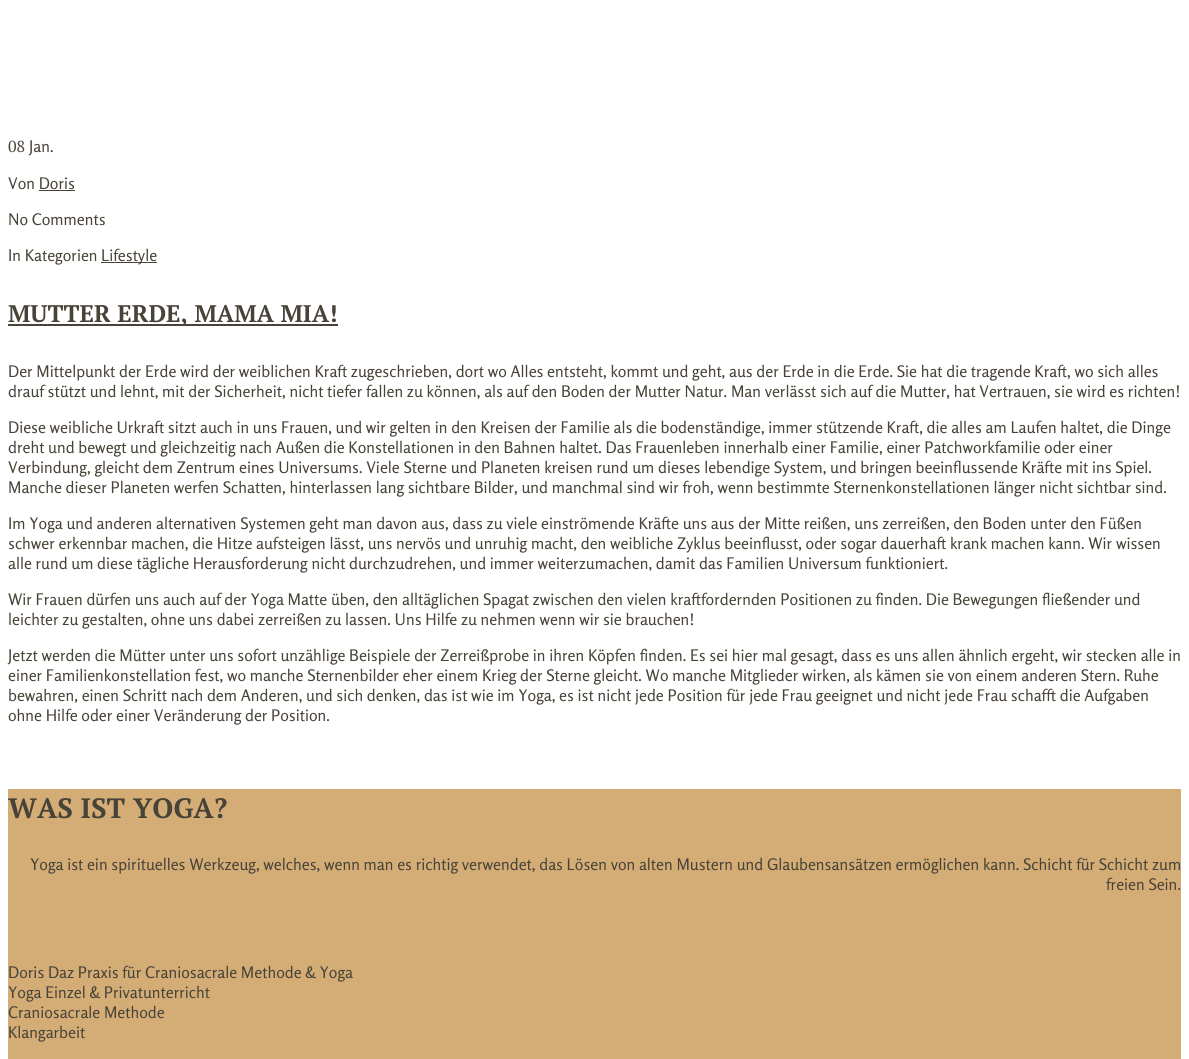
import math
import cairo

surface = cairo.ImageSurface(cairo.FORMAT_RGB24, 1189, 1059)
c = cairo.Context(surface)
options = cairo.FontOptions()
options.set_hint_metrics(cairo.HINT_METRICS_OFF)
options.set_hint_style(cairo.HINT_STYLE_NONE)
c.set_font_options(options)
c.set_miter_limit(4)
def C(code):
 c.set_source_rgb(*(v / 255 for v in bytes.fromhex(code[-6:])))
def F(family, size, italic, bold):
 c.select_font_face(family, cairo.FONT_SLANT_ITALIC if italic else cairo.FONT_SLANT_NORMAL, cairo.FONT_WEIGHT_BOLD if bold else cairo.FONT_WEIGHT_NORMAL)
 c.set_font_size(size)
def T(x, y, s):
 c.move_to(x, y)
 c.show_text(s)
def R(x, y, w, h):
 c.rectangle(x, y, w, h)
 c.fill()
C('ffffff')
c.paint()
F('PT Serif',16,0,0)
C('484338')
T(8,152,'08')
F('Rosario',16,0,0)
T(29,152,'Jan.')
T(8,189,'Von Doris')
R(39,190,36,1)
T(8,225,'No Comments')
T(8,261,'In Kategorien')
R(101,262,56,1)
T(101,261,'Lifestyle')
R(8,324,330,2)
F('PT Serif',24,0,1)
T(8,322,'MUTTER ERDE, MAMA MIA!')
F('Rosario',16,0,0)
T(8,377,'Der Mittelpunkt der Erde wird der weiblichen Kraft zugeschrieben, dort wo Alles entsteht, kommt und geht, aus der Erde in die Erde. Sie hat die tragende Kraft, wo sich alles')
T(8,397,'drauf stützt und lehnt, mit der Sicherheit, nicht tiefer fallen zu können, als auf den Boden der Mutter Natur. Man verlässt sich auf die Mutter, hat Vertrauen, sie wird es richten!')
T(8,433,'Diese weibliche Urkraft sitzt auch in uns Frauen, und wir gelten in den Kreisen der Familie als die bodenständige, immer stützende Kraft, die alles am Laufen haltet, die Dinge')
T(8,453,'dreht und bewegt und gleichzeitig nach Außen die Konstellationen in den Bahnen haltet. Das Frauenleben innerhalb einer Familie, einer Patchworkfamilie oder einer')
T(8,473,'Verbindung, gleicht dem Zentrum eines Universums. Viele Sterne und Planeten kreisen rund um dieses lebendige System, und bringen beeinflussende Kräfte mit ins Spiel.')
T(8,493,'Manche dieser Planeten werfen Schatten, hinterlassen lang sichtbare Bilder, und manchmal sind wir froh, wenn bestimmte Sternenkonstellationen länger nicht sichtbar sind.')
T(8,529,'Im Yoga und anderen alternativen Systemen geht man davon aus, dass zu viele einströmende Kräfte uns aus der Mitte reißen, uns zerreißen, den Boden unter den Füßen')
T(8,549,'schwer erkennbar machen, die Hitze aufsteigen lässt, uns nervös und unruhig macht, den weibliche Zyklus beeinflusst, oder sogar dauerhaft krank machen kann. Wir wissen')
T(8,569,'alle rund um diese tägliche Herausforderung nicht durchzudrehen, und immer weiterzumachen, damit das Familien Universum funktioniert.')
T(8,605,'Wir Frauen dürfen uns auch auf der Yoga Matte üben, den alltäglichen Spagat zwischen den vielen kraftfordernden Positionen zu finden. Die Bewegungen fließender und')
T(8,625,'leichter zu gestalten, ohne uns dabei zerreißen zu lassen. Uns Hilfe zu nehmen wenn wir sie brauchen!')
T(8,661,'Jetzt werden die Mütter unter uns sofort unzählige Beispiele der Zerreißprobe in ihren Köpfen finden. Es sei hier mal gesagt, dass es uns allen ähnlich ergeht, wir stecken alle in')
T(8,681,'einer Familienkonstellation fest, wo manche Sternenbilder eher einem Krieg der Sterne gleicht. Wo manche Mitglieder wirken, als kämen sie von einem anderen Stern. Ruhe')
T(8,701,'bewahren, einen Schritt nach dem Anderen, und sich denken, das ist wie im Yoga, es ist nicht jede Position für jede Frau geeignet und nicht jede Frau schafft die Aufgaben')
T(8,721,'ohne Hilfe oder einer Veränderung der Position.')
C('d4ad76')
R(8,789,1173,270)
F('PT Serif',28,0,1)
C('484338')
T(8,818,'WAS IST YOGA?')
F('Rosario',16,0,0)
T(30,870,'Yoga ist ein spirituelles Werkzeug, welches, wenn man es richtig verwendet, das Lösen von alten Mustern und Glaubensansätzen ermöglichen kann. Schicht für Schicht zum')
T(1106,890,'freien Sein.')
T(8,978,'Doris Daz Praxis für Craniosacrale Methode & Yoga')
T(8,998,'Yoga Einzel & Privatunterricht')
T(8,1018,'Craniosacrale Methode')
T(8,1038,'Klangarbeit')
surface.write_to_png('o.png')
